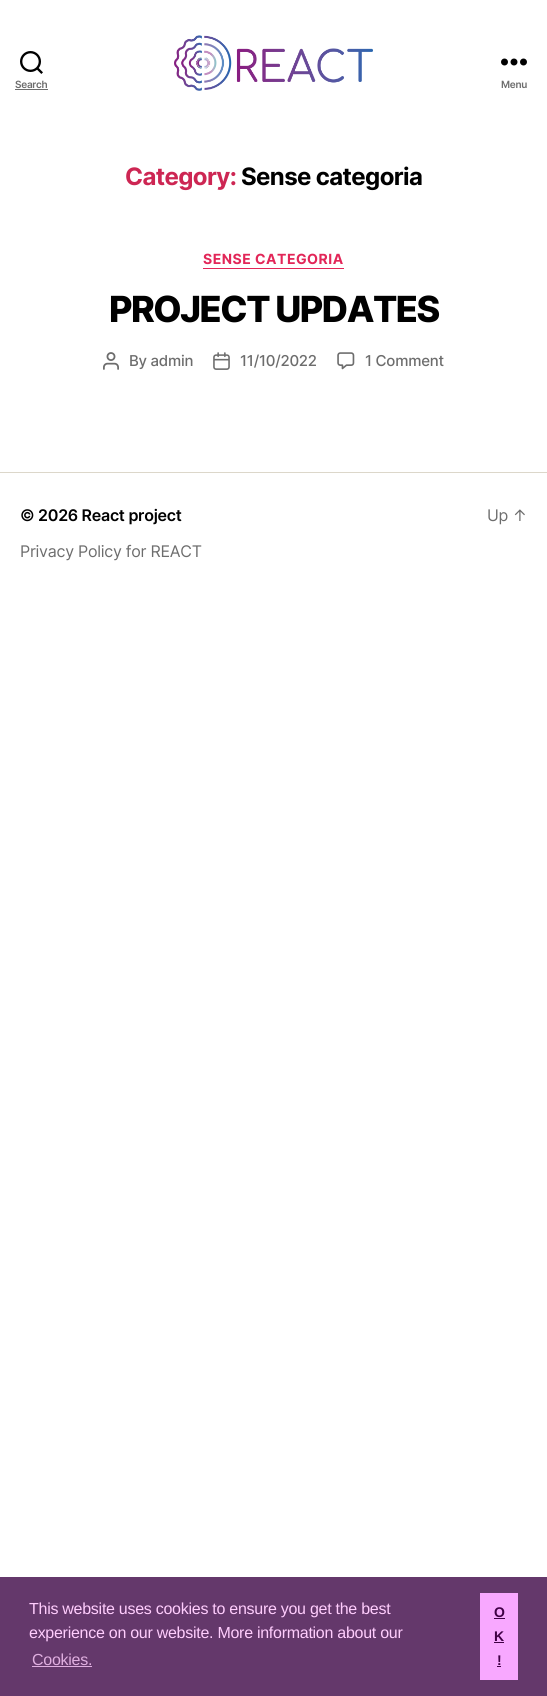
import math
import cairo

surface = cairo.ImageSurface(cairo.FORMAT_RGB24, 547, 1696)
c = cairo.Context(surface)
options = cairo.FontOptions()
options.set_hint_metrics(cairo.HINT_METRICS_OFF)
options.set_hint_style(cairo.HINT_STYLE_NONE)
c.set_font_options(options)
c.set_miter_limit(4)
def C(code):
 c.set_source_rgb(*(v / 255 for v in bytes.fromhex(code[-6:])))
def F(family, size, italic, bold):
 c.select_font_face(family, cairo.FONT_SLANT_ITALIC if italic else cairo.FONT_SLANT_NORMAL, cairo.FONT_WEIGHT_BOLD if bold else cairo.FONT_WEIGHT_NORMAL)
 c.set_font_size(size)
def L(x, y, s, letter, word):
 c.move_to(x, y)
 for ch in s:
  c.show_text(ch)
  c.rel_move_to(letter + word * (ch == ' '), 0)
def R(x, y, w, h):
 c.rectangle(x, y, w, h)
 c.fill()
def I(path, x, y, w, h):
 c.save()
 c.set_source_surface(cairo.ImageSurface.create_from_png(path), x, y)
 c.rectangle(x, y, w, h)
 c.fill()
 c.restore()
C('ffffff')
c.paint()
I('1.png',20,51,23,23)
F('Inter SemiBold',10,0,0)
C('6d6d6d')
L(15,88,'Search',-.27,0)
R(15,89,33,1)
I('2.png',174,35,199,56)
I('3.png',501,58,26,8)
L(501,88,'Menu',-.27,0)
F('Inter',24,0,1)
C('cd2653')
L(125,185,'Category:',-.6,0)
C('000000')
L(241,185,'Sense categoria',-.6,0)
C('e22658')
R(203,268,141,1)
F('Inter',14,0,1)
L(203,264,'SENSE CATEGORIA',.5,0)
F('Inter ExtraBold',36,0,0)
C('000000')
L(109,322,'PROJECT UPDATES',-1.5,0)
I('4.png',103,352,16,18)
F('Inter Medium',15,0,0)
C('6d6d6d')
L(129,366,'By admin',-.25,0)
I('5.png',213,352,17,18)
L(240,366,'11/10/2022',-.25,0)
I('6.png',337,352,18,18)
L(365,366,'1 Comment',-.25,0)
C('dcd7ca')
R(0,472,547,1)
F('Inter SemiBold',16,0,0)
C('000000')
L(20,521,'© 2026 React project',-.27,0)
F('Inter',16,0,0)
C('6d6d6d')
L(20,557,'Privacy Policy for REACT',-.27,0)
L(487,521,'Up ↑',-.27,0)
C('64386b')
R(0,1577,547,119)
F('Liberation Sans',16,0,0)
C('ffcdfd')
L(29,1614,'This website uses cookies to ensure you get the best',-.27,0)
L(29,1638,'experience on our website. More information about our',-.27,0)
C('e0afe0')
L(32,1665,'Cookies.',-.27,0)
R(32,1666,60,1)
C('f8a8ff')
R(480,1593,38,87)
F('Liberation Sans',14,0,1)
C('3f0045')
L(494,1617,'O',-.27,0)
R(494,1618,11,1)
L(494,1641,'K',-.27,0)
R(494,1642,10,1)
L(497,1665,'!',-.27,0)
R(497,1666,4,1)
surface.write_to_png('o.png')
